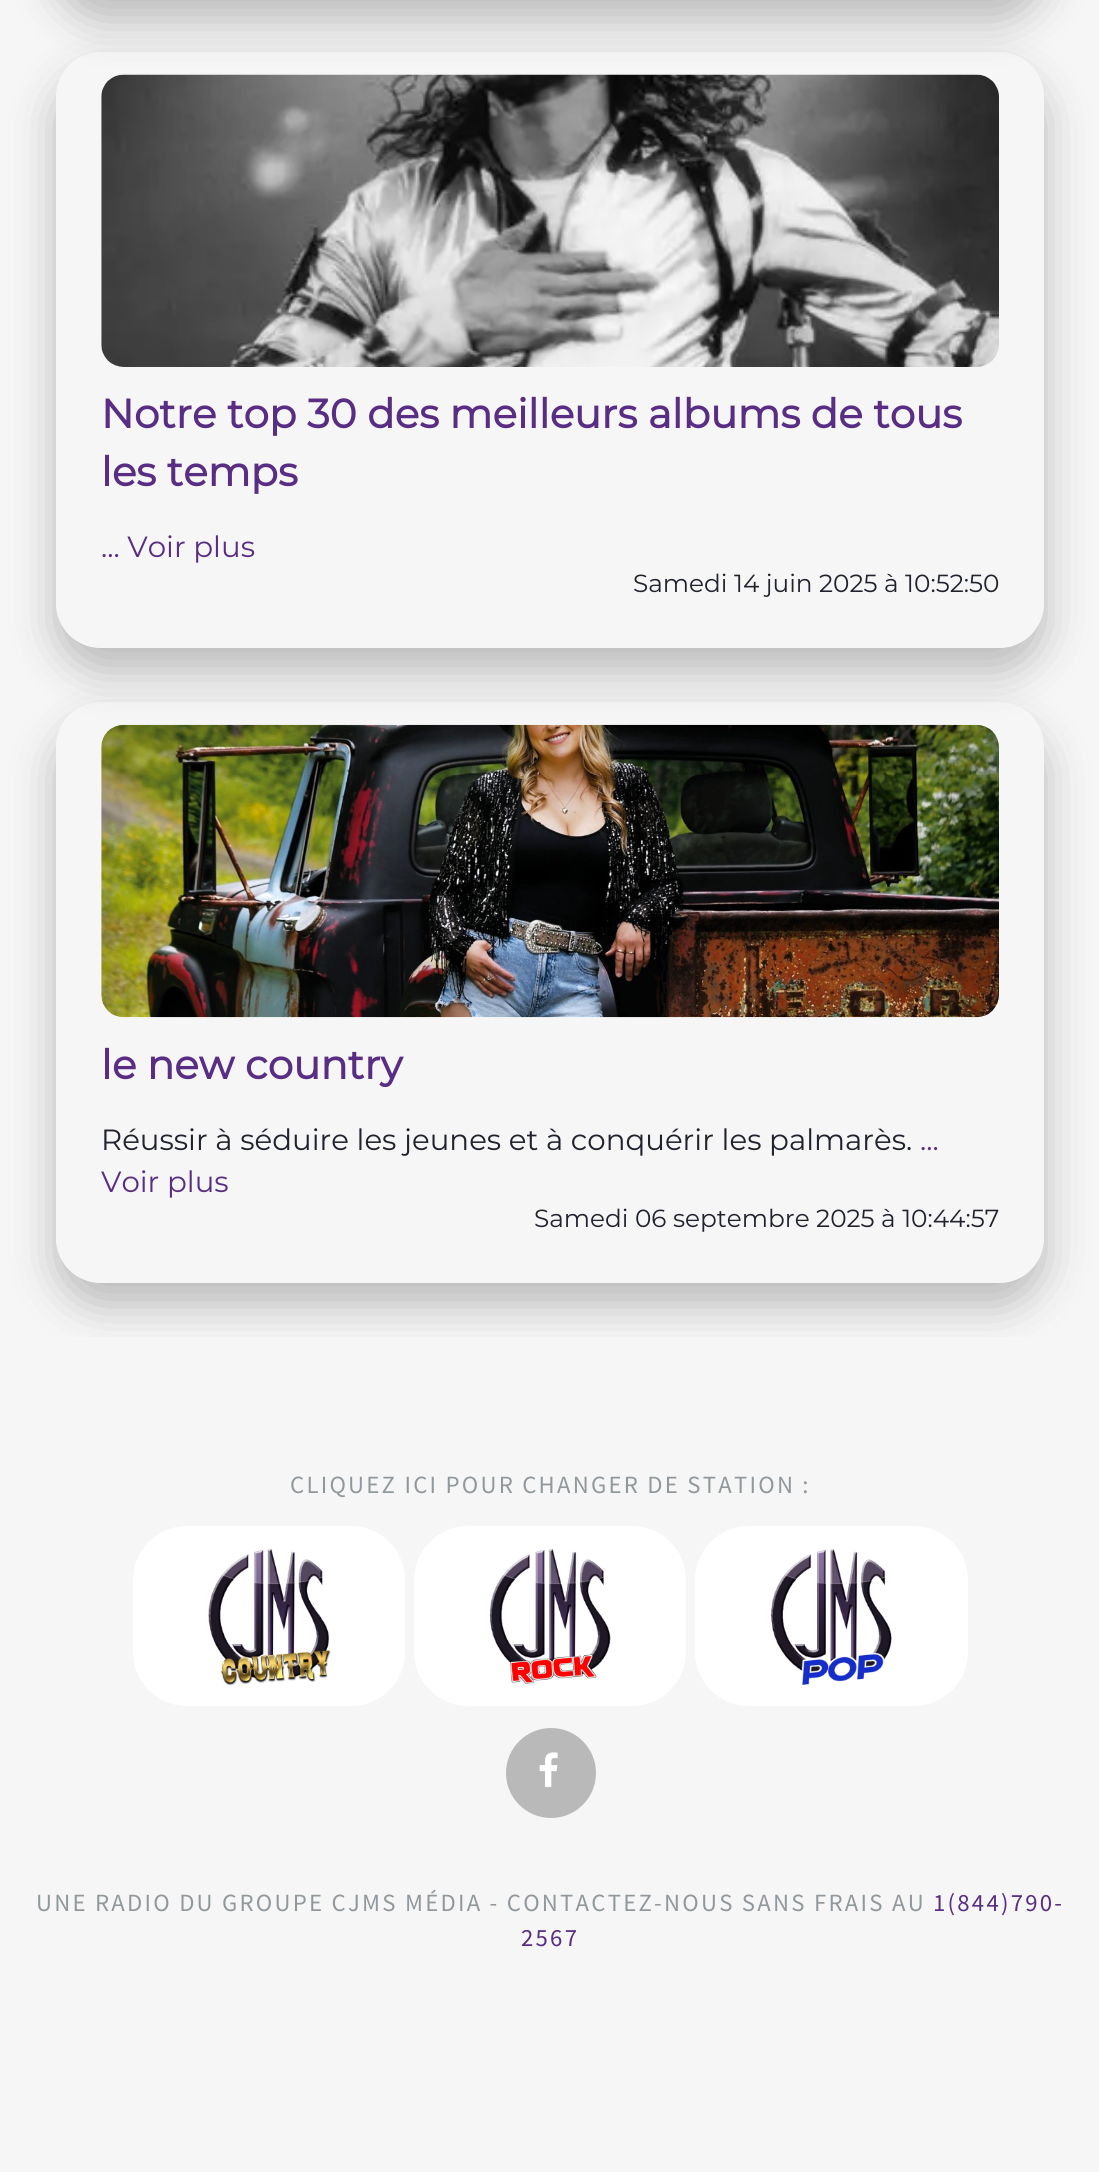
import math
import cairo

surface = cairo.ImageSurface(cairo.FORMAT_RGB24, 1099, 2172)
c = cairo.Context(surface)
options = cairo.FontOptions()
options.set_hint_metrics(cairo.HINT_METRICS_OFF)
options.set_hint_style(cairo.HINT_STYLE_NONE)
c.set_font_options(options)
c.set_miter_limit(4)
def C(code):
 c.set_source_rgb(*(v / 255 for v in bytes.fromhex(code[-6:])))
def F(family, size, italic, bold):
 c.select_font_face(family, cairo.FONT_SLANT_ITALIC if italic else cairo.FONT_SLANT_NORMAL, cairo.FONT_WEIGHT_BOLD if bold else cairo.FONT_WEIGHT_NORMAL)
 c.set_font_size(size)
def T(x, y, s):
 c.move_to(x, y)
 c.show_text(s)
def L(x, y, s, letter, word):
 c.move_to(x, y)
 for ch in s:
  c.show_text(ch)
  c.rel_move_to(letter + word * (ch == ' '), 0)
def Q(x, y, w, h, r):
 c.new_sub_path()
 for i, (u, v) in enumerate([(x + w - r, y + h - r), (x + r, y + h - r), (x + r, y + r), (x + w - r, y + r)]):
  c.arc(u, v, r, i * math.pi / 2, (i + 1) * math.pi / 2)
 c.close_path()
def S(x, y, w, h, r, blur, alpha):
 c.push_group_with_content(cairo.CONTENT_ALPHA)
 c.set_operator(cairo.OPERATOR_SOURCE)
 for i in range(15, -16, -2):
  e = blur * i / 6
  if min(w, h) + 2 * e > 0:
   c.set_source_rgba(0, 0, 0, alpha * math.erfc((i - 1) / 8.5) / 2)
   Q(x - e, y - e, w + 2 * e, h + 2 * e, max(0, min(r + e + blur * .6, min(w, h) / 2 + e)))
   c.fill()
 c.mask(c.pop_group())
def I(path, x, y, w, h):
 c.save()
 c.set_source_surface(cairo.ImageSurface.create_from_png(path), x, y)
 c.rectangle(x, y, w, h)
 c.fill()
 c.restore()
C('f6f6f6')
c.paint()
C('000000')
S(56,-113,988,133,45,22.5,.25)
c.save()
c.set_fill_rule(cairo.FILL_RULE_EVEN_ODD)
c.new_path()
c.move_to(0,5)
c.line_to(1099,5)
c.line_to(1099,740)
c.line_to(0,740)
c.close_path()
c.move_to(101,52)
c.line_to(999,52)
c.curve_to(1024,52,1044,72,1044,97)
c.line_to(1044,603)
c.curve_to(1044,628,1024,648,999,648)
c.line_to(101,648)
c.curve_to(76,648,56,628,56,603)
c.line_to(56,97)
c.curve_to(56,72,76,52,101,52)
c.close_path()
c.clip()
S(56,74,988,597,45,22.5,.25)
c.restore()
I('1.png',101,74,898,293)
F('Montserrat',40.5,0,1)
C('592d83')
T(101,428,'Notre top 30 des meilleurs albums de tous')
T(101,486,'les temps')
F('Montserrat Thin',29.25,0,0)
T(101,557,'... Voir plus')
F('Montserrat Thin',24.75,0,0)
C('20222d')
T(633,592,'Samedi 14 juin 2025 à 10:52:50')
c.save()
c.rectangle(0,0,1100,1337)
c.clip()
c.set_fill_rule(cairo.FILL_RULE_EVEN_ODD)
c.new_path()
c.move_to(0,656)
c.line_to(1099,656)
c.line_to(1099,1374)
c.line_to(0,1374)
c.close_path()
c.move_to(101,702)
c.line_to(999,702)
c.curve_to(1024,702,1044,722,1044,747)
c.line_to(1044,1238)
c.curve_to(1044,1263,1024,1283,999,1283)
c.line_to(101,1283)
c.curve_to(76,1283,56,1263,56,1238)
c.line_to(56,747)
c.curve_to(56,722,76,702,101,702)
c.close_path()
c.clip()
C('000000')
S(56,725,988,580,45,22.5,.25)
c.restore()
I('2.png',101,724,898,294)
F('Montserrat',40.5,0,1)
C('592d83')
T(101,1079,'le new country')
F('Montserrat Thin',29.25,0,0)
C('20222d')
T(101,1150,'Réussir à séduire les jeunes et à conquérir les palmarès.')
C('592d83')
T(920,1150,'...')
T(101,1192,'Voir plus')
F('Montserrat Thin',24.75,0,0)
C('20222d')
T(534,1227,'Samedi 06 septembre 2025 à 10:44:57')
F('Source Sans Pro',24.75,0,0)
C('90989c')
L(290,1493,'CLIQUEZ ICI POUR CHANGER DE STATION :',2.25,0)
C('ffffff')
Q(133,1526,272,180,54)
c.fill()
I('3.png',208,1549,123,137)
Q(414,1526,272,180,54)
c.fill()
I('4.png',489,1549,122,135)
Q(695,1526,273,180,54)
c.fill()
I('5.png',770,1549,122,136)
C('b9b9b9')
c.arc(551,1773,45,0,2 * math.pi)
c.fill()
I('6.png',539,1752,19,35)
C('90989c')
L(36,1911,'UNE RADIO DU GROUPE CJMS MÉDIA - CONTACTEZ-NOUS SANS FRAIS AU',2.25,0)
C('592d83')
L(933,1911,'1(844)790-',2.25,0)
L(521,1946,'2567',2.25,0)
surface.write_to_png('o.png')
